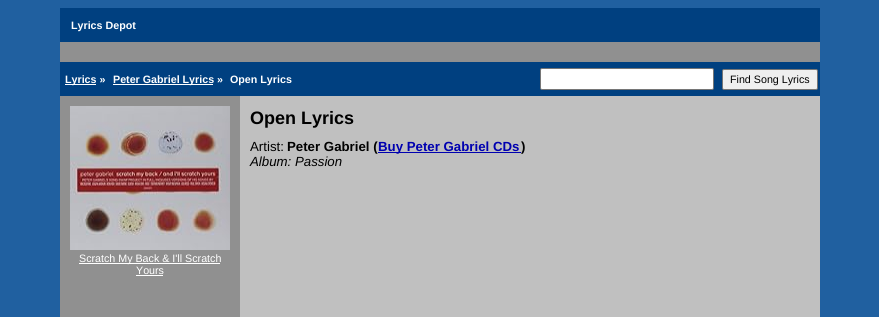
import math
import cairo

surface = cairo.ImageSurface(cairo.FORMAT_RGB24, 879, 317)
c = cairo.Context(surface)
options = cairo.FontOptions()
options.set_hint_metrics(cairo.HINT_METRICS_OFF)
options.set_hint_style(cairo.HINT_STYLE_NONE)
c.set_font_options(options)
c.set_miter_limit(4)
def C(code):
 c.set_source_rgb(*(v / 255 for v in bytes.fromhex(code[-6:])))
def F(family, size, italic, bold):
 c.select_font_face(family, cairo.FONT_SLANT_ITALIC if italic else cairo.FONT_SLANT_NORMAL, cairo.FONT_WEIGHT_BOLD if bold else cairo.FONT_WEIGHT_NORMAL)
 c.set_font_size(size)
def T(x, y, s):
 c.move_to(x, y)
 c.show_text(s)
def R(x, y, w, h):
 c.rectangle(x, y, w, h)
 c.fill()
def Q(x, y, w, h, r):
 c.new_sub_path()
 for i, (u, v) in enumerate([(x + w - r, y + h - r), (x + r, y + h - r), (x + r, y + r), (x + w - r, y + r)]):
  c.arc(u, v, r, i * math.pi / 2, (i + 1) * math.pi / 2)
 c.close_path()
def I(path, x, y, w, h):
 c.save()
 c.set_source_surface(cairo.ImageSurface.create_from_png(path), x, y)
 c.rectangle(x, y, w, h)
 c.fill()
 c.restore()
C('2060a0')
c.paint()
C('909090')
R(60,42,760,20)
C('004080')
R(60,8,760,34)
F('Liberation Sans',10.7,0,1)
C('ffffff')
T(71,29,'Lyrics Depot')
C('004080')
R(60,62,760,34)
C('ffffff')
R(65,84,31,1)
T(65,83,'Lyrics »')
R(113,84,100,1)
T(113,83,'Peter Gabriel Lyrics »')
T(230,83,'Open Lyrics')
Q(540.5,68.5,173,21,1.5)
c.fill_preserve()
C('767676')
c.set_line_width(1)
c.stroke()
C('efefef')
Q(722.5,69.5,95,20,1.5)
c.fill_preserve()
C('767676')
c.stroke()
F('Liberation Sans',10.7,0,0)
C('000000')
T(730,83,'Find Song Lyrics')
C('c0c0c0')
R(240,96,580,221)
F('Liberation Sans',18,0,1)
C('000000')
T(250,124,'Open Lyrics')
F('Liberation Sans',13.25,0,0)
T(250,151,'Artist:')
F('Liberation Sans',13.25,0,1)
T(287,151,'Peter Gabriel (')
C('0000b0')
R(378,152,143,1)
T(378,151,'Buy Peter Gabriel CDs')
C('000000')
T(521,151,')')
F('Liberation Sans',13.25,1,0)
T(250,166,'Album: Passion')
C('909090')
R(60,96,180,221)
I('1.png',70,106,160,144)
C('ffffff')
R(79,263,141,1)
F('Liberation Sans',10.7,0,0)
T(79,262,'Scratch My Back & I\'ll Scratch')
T(136,274,'Yours')
R(136,275,27,1)
surface.write_to_png('o.png')
